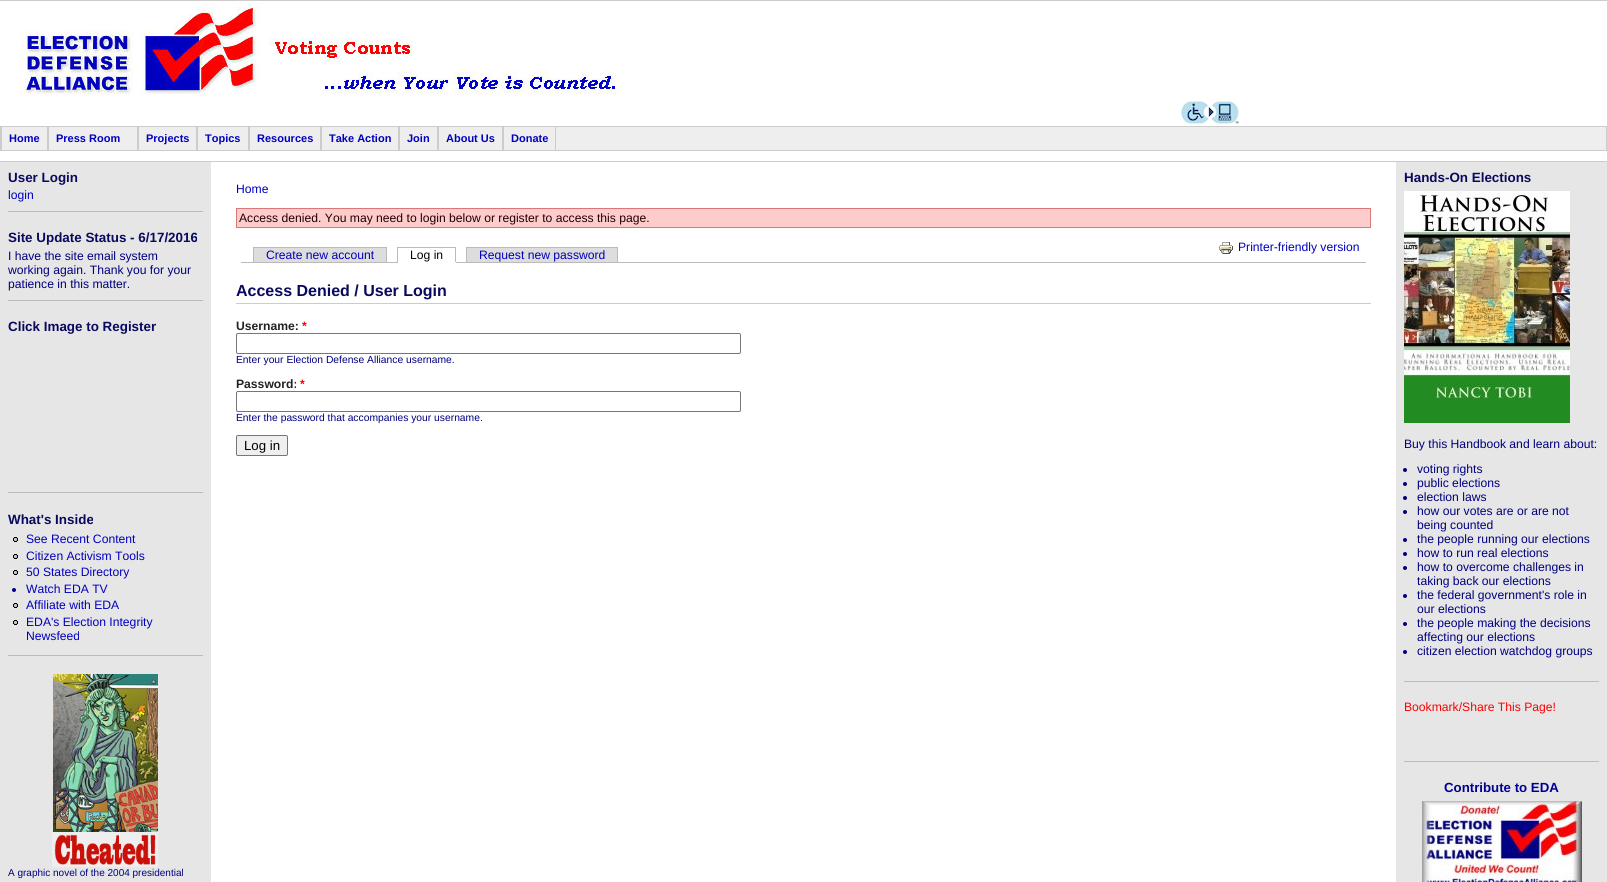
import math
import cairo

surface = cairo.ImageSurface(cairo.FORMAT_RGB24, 1607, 882)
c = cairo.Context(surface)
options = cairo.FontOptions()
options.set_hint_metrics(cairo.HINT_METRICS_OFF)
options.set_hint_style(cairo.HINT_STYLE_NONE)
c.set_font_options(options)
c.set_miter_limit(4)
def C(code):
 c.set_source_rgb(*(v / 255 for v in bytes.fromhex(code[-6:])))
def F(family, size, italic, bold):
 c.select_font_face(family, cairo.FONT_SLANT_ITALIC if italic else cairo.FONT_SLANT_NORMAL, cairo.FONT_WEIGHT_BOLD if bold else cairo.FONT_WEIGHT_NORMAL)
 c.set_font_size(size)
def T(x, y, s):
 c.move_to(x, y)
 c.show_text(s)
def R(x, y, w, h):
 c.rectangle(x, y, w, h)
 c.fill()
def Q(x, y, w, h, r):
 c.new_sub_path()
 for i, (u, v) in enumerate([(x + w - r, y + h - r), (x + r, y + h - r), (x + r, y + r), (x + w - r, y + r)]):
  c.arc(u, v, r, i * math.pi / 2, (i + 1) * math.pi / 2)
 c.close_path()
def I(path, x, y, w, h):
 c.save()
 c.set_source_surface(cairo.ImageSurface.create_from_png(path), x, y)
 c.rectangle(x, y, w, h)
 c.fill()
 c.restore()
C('ffffff')
c.paint()
C('cccccc')
R(0,0,1607,1)
I('1.png',21,6,600,89)
C('eeeeee')
R(2,127,1604,23)
C('cccccc')
R(0,126,1607,1)
R(1606,126,1,25)
R(0,150,1607,1)
R(0,126,1,25)
I('2.png',1181,101,58,23)
R(47,127,2,23)
R(1,127,1,23)
F('Liberation Sans',11,0,1)
C('0100be')
T(9,142,'Home')
C('cccccc')
R(137,127,2,23)
C('0100be')
T(56,142,'Press Room')
C('cccccc')
R(196,127,2,23)
C('0100be')
T(146,142,'Projects')
C('cccccc')
R(248,127,2,23)
C('0100be')
T(205,142,'Topics')
C('cccccc')
R(320,127,2,23)
C('0100be')
T(257,142,'Resources')
C('cccccc')
R(398,127,2,23)
C('0100be')
T(329,142,'Take Action')
C('cccccc')
R(437,127,2,23)
C('0100be')
T(407,142,'Join')
C('cccccc')
R(502,127,2,23)
C('0100be')
T(446,142,'About Us')
C('cccccc')
R(555,127,1,23)
C('0100be')
T(511,142,'Donate')
C('cccccc')
R(0,161,1607,1)
C('e6e6e6')
R(0,162,211,720)
C('bbbbbb')
R(8,211,195,1)
F('Liberation Sans',13.4,0,1)
C('09095e')
T(8,182,'User Login')
F('Liberation Sans',12.15,0,0)
C('0100be')
T(8,199,'login')
C('bbbbbb')
R(8,300,195,1)
F('Liberation Sans',13.4,0,1)
C('09095e')
T(8,242,'Site Update Status - 6/17/2016')
F('Liberation Sans',12.15,0,0)
C('000080')
T(8,260,'I have the site email system')
T(8,274,'working again. Thank you for your')
T(8,288,'patience in this matter.')
C('bbbbbb')
R(8,492,195,1)
F('Liberation Sans',13.4,0,1)
C('09095e')
T(8,331,'Click Image to Register')
C('bbbbbb')
R(8,655,195,1)
C('09095e')
T(8,524,'What\'s Inside')
I('3.png',13,537,5,5)
F('Liberation Sans',12.15,0,0)
C('0100be')
T(26,543,'See Recent Content')
I('3.png',13,554,5,5)
T(26,560,'Citizen Activism Tools')
I('3.png',13,570,5,5)
T(26,576,'50 States Directory')
C('000080')
c.new_path()
c.arc(14,590,2,0,2 * math.pi)
c.fill()
C('0100be')
T(26,593,'Watch EDA TV')
I('3.png',13,603,5,5)
T(26,609,'Affiliate with EDA')
I('3.png',13,620,5,5)
T(26,626,'EDA\'s Election Integrity')
T(26,640,'Newsfeed')
I('4.png',53,674,105,158)
I('5.png',52,832,106,35)
F('Liberation Sans',10,0,0)
C('000080')
T(8,876,'A graphic novel of the 2004 presidential')
F('Liberation Sans',12.15,0,0)
C('0100be')
T(236,193,'Home')
C('ffcccc')
c.rectangle(236.5,208.5,1134,19)
c.fill_preserve()
C('dd7777')
c.set_line_width(1)
c.stroke()
C('220000')
T(239,222,'Access denied. You may need to login below or register to access this page.')
I('6.png',1219,242,14,12)
C('0100be')
T(1238,251,'Printer-friendly version')
C('bbbbbb')
R(241,262,1125,1)
C('dddddd')
R(254,248,132,14)
C('0100be')
T(266,259,'Create new account')
C('bbbbbb')
R(253,247,134,1)
R(386,247,1,15)
R(253,247,1,15)
C('000000')
T(410,259,'Log in')
C('bbbbbb')
R(397,247,59,1)
R(455,247,1,16)
C('ffffff')
R(397,262,59,1)
C('bbbbbb')
R(397,247,1,16)
C('dddddd')
R(467,248,150,14)
C('0100be')
T(479,259,'Request new password')
C('bbbbbb')
R(466,247,152,1)
R(617,247,1,15)
R(466,247,1,15)
C('cccccc')
R(236,303,1135,1)
F('Liberation Sans',16,0,1)
C('09095e')
T(236,296,'Access Denied / User Login')
F('Liberation Sans',12.15,0,1)
C('222222')
T(236,330,'Username:')
C('ff0000')
T(302,330,'*')
Q(236.5,333.5,504,20,1.5)
C('767676')
c.stroke()
F('Liberation Sans',10.3,0,0)
C('000080')
T(236,363,'Enter your Election Defense Alliance username.')
F('Liberation Sans',12.15,0,1)
C('222222')
T(236,388,'Password:')
C('ff0000')
T(300,388,'*')
Q(236.5,391.5,504,20,1.5)
C('767676')
c.stroke()
F('Liberation Sans',10.3,0,0)
C('000080')
T(236,421,'Enter the password that accompanies your username.')
C('efefef')
Q(236.5,435.5,51,20,1.5)
c.fill_preserve()
C('767676')
c.stroke()
F('Liberation Sans',13.25,0,0)
C('000000')
T(244,450,'Log in')
C('e6e6e6')
R(1396,162,211,720)
C('bbbbbb')
R(1404,681,195,1)
F('Liberation Sans',13.4,0,1)
C('09095e')
T(1404,182,'Hands-On Elections')
I('7.png',1404,191,166,232)
F('Liberation Sans',12.15,0,0)
C('000080')
T(1404,448,'Buy this Handbook and learn about:')
c.new_path()
c.arc(1405,470,2,0,2 * math.pi)
c.fill()
T(1417,473,'voting rights')
c.new_path()
c.arc(1405,484,2,0,2 * math.pi)
c.fill()
T(1417,487,'public elections')
c.new_path()
c.arc(1405,498,2,0,2 * math.pi)
c.fill()
T(1417,501,'election laws')
c.new_path()
c.arc(1405,512,2,0,2 * math.pi)
c.fill()
T(1417,515,'how our votes are or are not')
T(1417,529,'being counted')
c.new_path()
c.arc(1405,540,2,0,2 * math.pi)
c.fill()
T(1417,543,'the people running our elections')
c.new_path()
c.arc(1405,554,2,0,2 * math.pi)
c.fill()
T(1417,557,'how to run real elections')
c.new_path()
c.arc(1405,568,2,0,2 * math.pi)
c.fill()
T(1417,571,'how to overcome challenges in')
T(1417,585,'taking back our elections')
c.new_path()
c.arc(1405,596,2,0,2 * math.pi)
c.fill()
T(1417,599,'the federal government\'s role in')
T(1417,613,'our elections')
c.new_path()
c.arc(1405,624,2,0,2 * math.pi)
c.fill()
T(1417,627,'the people making the decisions')
T(1417,641,'affecting our elections')
c.new_path()
c.arc(1405,652,2,0,2 * math.pi)
c.fill()
T(1417,655,'citizen election watchdog groups')
C('bbbbbb')
R(1404,761,195,1)
C('ff0000')
T(1404,711,'Bookmark/Share This Page!')
F('Liberation Sans',13.25,0,1)
C('000099')
T(1444,792,'Contribute to EDA')
I('8.png',1422,801,160,81)
surface.write_to_png('o.png')
